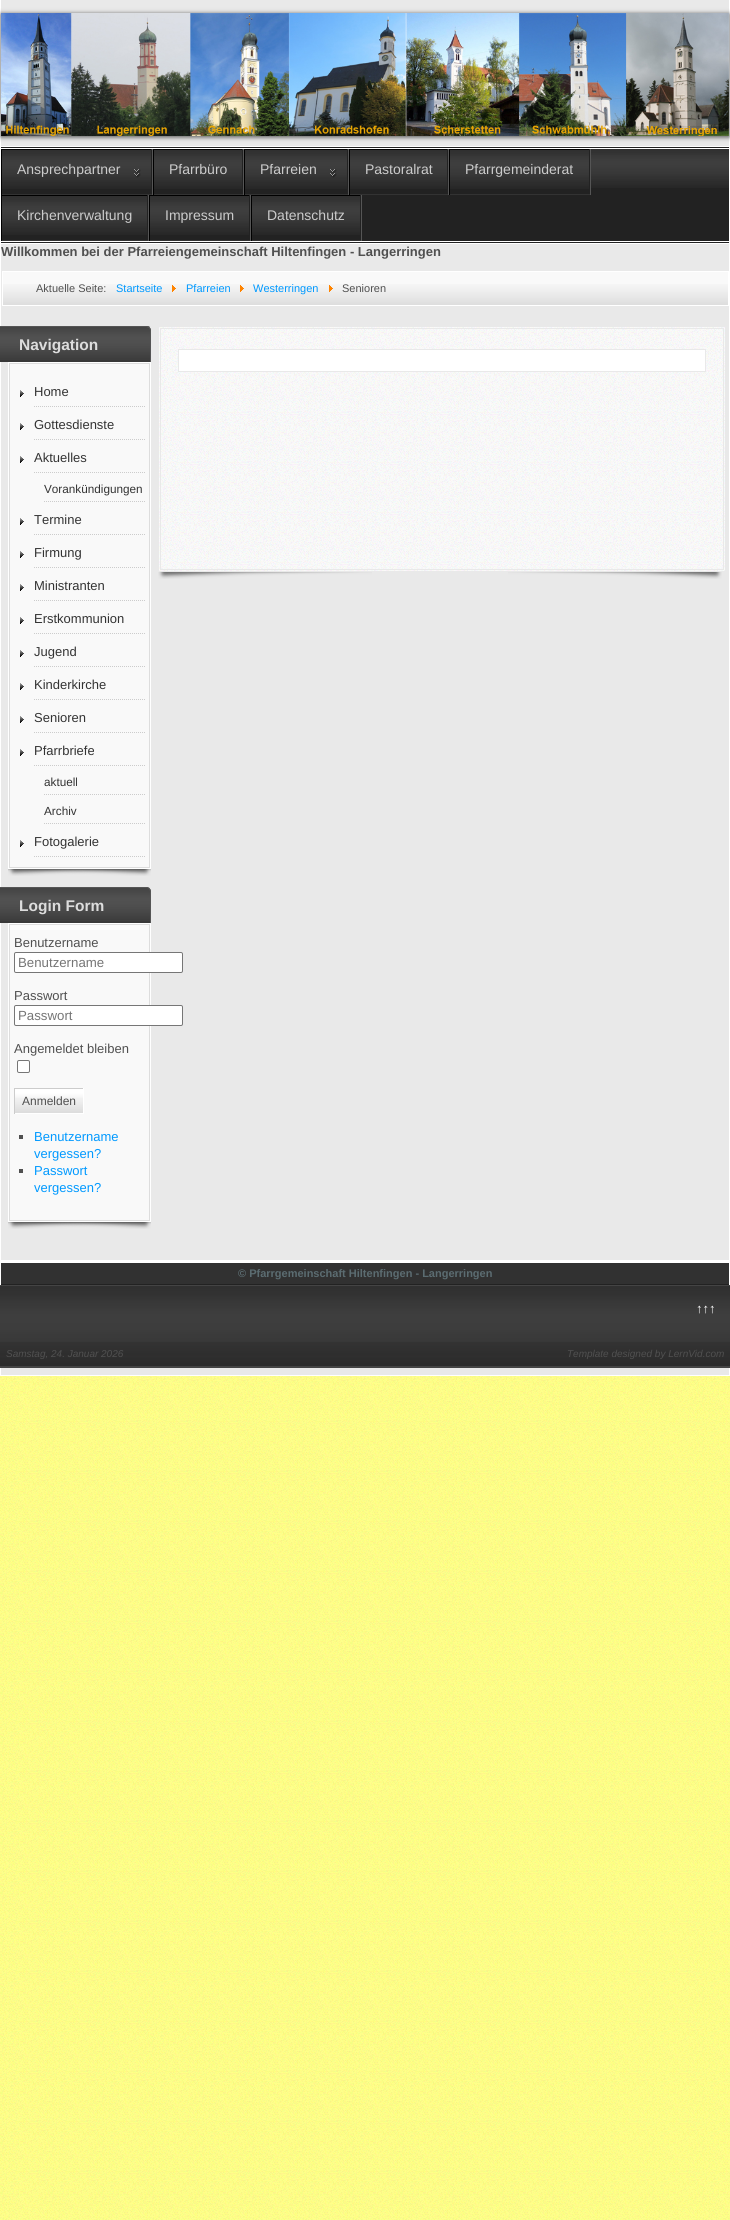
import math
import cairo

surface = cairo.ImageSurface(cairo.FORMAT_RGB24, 730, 2220)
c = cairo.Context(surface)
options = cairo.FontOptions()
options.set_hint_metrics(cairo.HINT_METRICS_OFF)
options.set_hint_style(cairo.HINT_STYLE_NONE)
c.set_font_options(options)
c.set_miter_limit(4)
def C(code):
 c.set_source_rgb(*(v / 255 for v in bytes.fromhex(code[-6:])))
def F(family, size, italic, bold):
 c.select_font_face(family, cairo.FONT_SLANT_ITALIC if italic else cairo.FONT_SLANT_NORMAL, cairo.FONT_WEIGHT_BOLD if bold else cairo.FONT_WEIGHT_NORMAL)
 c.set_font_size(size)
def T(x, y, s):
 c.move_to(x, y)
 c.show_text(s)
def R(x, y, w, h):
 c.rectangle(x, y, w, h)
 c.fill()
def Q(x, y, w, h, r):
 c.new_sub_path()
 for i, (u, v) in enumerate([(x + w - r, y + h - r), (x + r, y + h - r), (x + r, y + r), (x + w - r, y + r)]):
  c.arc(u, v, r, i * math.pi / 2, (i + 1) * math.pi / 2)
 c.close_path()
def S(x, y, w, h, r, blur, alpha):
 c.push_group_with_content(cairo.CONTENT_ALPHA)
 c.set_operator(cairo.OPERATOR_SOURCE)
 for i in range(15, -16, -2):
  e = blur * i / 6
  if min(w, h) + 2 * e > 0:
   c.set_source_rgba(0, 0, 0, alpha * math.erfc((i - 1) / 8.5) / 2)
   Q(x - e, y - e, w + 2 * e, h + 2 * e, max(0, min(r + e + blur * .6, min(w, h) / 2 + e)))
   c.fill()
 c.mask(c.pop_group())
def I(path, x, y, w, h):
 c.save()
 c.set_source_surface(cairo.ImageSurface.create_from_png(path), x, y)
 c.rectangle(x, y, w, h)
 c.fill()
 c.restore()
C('ffff7e')
c.paint()
I('1.png',0,1376,730,844)
C('e9e9e9')
c.rectangle(.5,-.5,729,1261)
c.fill_preserve()
C('ffffff')
c.set_line_width(1)
c.stroke()
C('4a4a4a')
S(1,14,728,123,0,2.5,1)
I('2.png',1,13,728,123)
C('222222')
R(1,147,728,96)
I('3.png',591,149,138,39)
C('ffffff')
R(1,146,728,1)
R(1,148,728,1)
R(1,241,728,1)
R(1,243,728,1)
C('555555')
R(152,149,1,46)
I('4.png',2,150,149,39)
C('000000')
R(1,149,151,1)
C('222222')
R(151,149,1,1)
C('333333')
R(1,194,151,1)
C('000000')
R(1,149,1,46)
F('Liberation Sans',14,0,0)
C('cccccc')
T(17,174,'Ansprechpartner')
C('555555')
R(243,149,1,46)
I('5.png',154,150,88,39)
C('000000')
R(153,149,90,1)
C('222222')
R(242,149,1,1)
C('333333')
R(153,194,90,1)
C('000000')
R(153,149,1,46)
C('cccccc')
T(169,174,'Pfarrbüro')
C('555555')
R(348,149,1,46)
I('6.png',245,150,102,39)
C('000000')
R(244,149,104,1)
C('222222')
R(347,149,1,1)
C('333333')
R(244,194,104,1)
C('000000')
R(244,149,1,46)
C('cccccc')
T(260,174,'Pfarreien')
C('555555')
R(448,149,1,46)
I('7.png',350,150,97,39)
C('000000')
R(349,149,99,1)
C('222222')
R(447,149,1,1)
C('333333')
R(349,194,99,1)
C('000000')
R(349,149,1,46)
C('cccccc')
T(365,174,'Pastoralrat')
C('555555')
R(590,149,1,46)
I('8.png',450,150,139,39)
C('000000')
R(449,149,141,1)
C('222222')
R(589,149,1,1)
C('333333')
R(449,194,141,1)
C('000000')
R(449,149,1,46)
C('cccccc')
T(465,174,'Pfarrgemeinderat')
C('555555')
R(148,195,1,46)
I('9.png',2,196,145,39)
C('000000')
R(1,195,147,1)
C('222222')
R(147,195,1,1)
C('333333')
R(1,240,147,1)
C('000000')
R(1,195,1,46)
C('cccccc')
T(17,220,'Kirchenverwaltung')
C('555555')
R(250,195,1,46)
I('10.png',150,196,99,39)
C('000000')
R(149,195,101,1)
C('222222')
R(249,195,1,1)
C('333333')
R(149,240,101,1)
C('000000')
R(149,195,1,46)
C('cccccc')
T(165,220,'Impressum')
C('555555')
R(361,195,1,46)
I('11.png',252,196,108,39)
C('000000')
R(251,195,110,1)
C('222222')
R(360,195,1,1)
C('333333')
R(251,240,110,1)
C('000000')
R(251,195,1,46)
C('cccccc')
T(267,220,'Datenschutz')
F('Liberation Sans',13,0,1)
C('505050')
T(1,256,'Willkommen bei der Pfarreiengemeinschaft Hiltenfingen - Langerringen')
C('f9f9f9')
R(3,272,725,33)
I('12.png',3,284,725,21)
c.rectangle(2.5,271.5,726,34)
C('ffffff')
c.stroke()
F('Liberation Sans',11,0,0)
C('505050')
T(36,292,'Aktuelle Seite:')
C('0099ff')
T(116,292,'Startseite')
I('13.png',172,285,4,7)
T(186,292,'Pfarreien')
I('13.png',240,285,4,7)
T(253,292,'Westerringen')
I('13.png',329,285,4,7)
C('505050')
T(342,292,'Senioren')
C('383838')
c.new_path()
c.move_to(0,326)
c.line_to(146,326)
c.curve_to(149,326,151,328,151,331)
c.line_to(151,362)
c.line_to(-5,362)
c.line_to(-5,331)
c.curve_to(-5,328,-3,326,0,326)
c.close_path()
c.fill()
I('14.png',0,327,151,33)
C('555555')
c.new_path()
c.move_to(-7,326)
c.curve_to(-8,326,-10,326,-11,327)
c.line_to(-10,328)
c.curve_to(-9,328,-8,327,-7,327)
c.line_to(146,327)
c.curve_to(147,327,148,328,149,328)
c.line_to(150,327)
c.curve_to(149,326,148,326,146,326)
c.close_path()
c.fill()
c.new_path()
c.move_to(150,362)
c.line_to(151,362)
c.line_to(151,331)
c.curve_to(151,329.5,150.5,328,149.5,327.5)
c.line_to(149,328)
c.curve_to(149.5,329,150,330,150,331)
c.close_path()
c.fill()
F('Liberation Sans',15.5,0,1)
C('dddddd')
T(19,350,'Navigation')
c.rectangle(8.5,362.5,142,506)
C('ffffff')
c.stroke()
C('f9f9f9')
c.rectangle(9.5,363.5,140,504)
c.fill_preserve()
C('dddddd')
c.stroke()
I('15.png',20,390,4,7)
c.new_path()
c.move_to(34,406.5)
c.line_to(145,406.5)
C('cccccc')
c.set_dash([1,1])
c.stroke()
F('Liberation Sans',13,0,0)
C('333333')
T(34,396,'Home')
I('15.png',20,423,4,7)
c.new_path()
c.move_to(34,439.5)
c.line_to(145,439.5)
C('cccccc')
c.stroke()
C('333333')
T(34,429,'Gottesdienste')
I('15.png',20,456,4,7)
c.new_path()
c.move_to(34,472.5)
c.line_to(145,472.5)
C('cccccc')
c.stroke()
C('333333')
T(34,462,'Aktuelles')
c.new_path()
c.move_to(44,501.5)
c.line_to(145,501.5)
C('cccccc')
c.stroke()
F('Liberation Sans',11.75,0,0)
C('333333')
T(44,493,'Vorankündigungen')
I('15.png',20,518,4,7)
c.new_path()
c.move_to(34,534.5)
c.line_to(145,534.5)
C('cccccc')
c.stroke()
F('Liberation Sans',13,0,0)
C('333333')
T(34,524,'Termine')
I('15.png',20,551,4,7)
c.new_path()
c.move_to(34,567.5)
c.line_to(145,567.5)
C('cccccc')
c.stroke()
C('333333')
T(34,557,'Firmung')
I('15.png',20,584,4,7)
c.new_path()
c.move_to(34,600.5)
c.line_to(145,600.5)
C('cccccc')
c.stroke()
C('333333')
T(34,590,'Ministranten')
I('15.png',20,617,4,7)
c.new_path()
c.move_to(34,633.5)
c.line_to(145,633.5)
C('cccccc')
c.stroke()
C('333333')
T(34,623,'Erstkommunion')
I('15.png',20,650,4,7)
c.new_path()
c.move_to(34,666.5)
c.line_to(145,666.5)
C('cccccc')
c.stroke()
C('333333')
T(34,656,'Jugend')
I('15.png',20,683,4,7)
c.new_path()
c.move_to(34,699.5)
c.line_to(145,699.5)
C('cccccc')
c.stroke()
C('333333')
T(34,689,'Kinderkirche')
I('15.png',20,716,4,7)
c.new_path()
c.move_to(34,732.5)
c.line_to(145,732.5)
C('cccccc')
c.stroke()
C('333333')
T(34,722,'Senioren')
I('15.png',20,749,4,7)
c.new_path()
c.move_to(34,765.5)
c.line_to(145,765.5)
C('cccccc')
c.stroke()
C('333333')
T(34,755,'Pfarrbriefe')
c.new_path()
c.move_to(44,794.5)
c.line_to(145,794.5)
C('cccccc')
c.stroke()
F('Liberation Sans',11.75,0,0)
C('333333')
T(44,786,'aktuell')
c.new_path()
c.move_to(44,823.5)
c.line_to(145,823.5)
C('cccccc')
c.stroke()
C('333333')
T(44,815,'Archiv')
I('15.png',20,840,4,7)
c.new_path()
c.move_to(34,856.5)
c.line_to(145,856.5)
C('cccccc')
c.stroke()
F('Liberation Sans',13,0,0)
C('333333')
T(34,846,'Fotogalerie')
I('16.png',8,869,143,7)
I('17.png',8,869,143,7)
C('383838')
c.new_path()
c.move_to(0,887)
c.line_to(146,887)
c.curve_to(149,887,151,889,151,892)
c.line_to(151,923)
c.line_to(-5,923)
c.line_to(-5,892)
c.curve_to(-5,889,-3,887,0,887)
c.close_path()
c.fill()
I('14.png',0,888,151,33)
C('555555')
c.new_path()
c.move_to(-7,887)
c.curve_to(-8,887,-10,888,-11,888)
c.line_to(-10,889)
c.curve_to(-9,888,-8,888,-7,888)
c.line_to(146,888)
c.curve_to(147,888,148,888,149,889)
c.line_to(150,888)
c.curve_to(149,888,148,887,146,887)
c.close_path()
c.fill()
c.new_path()
c.move_to(150,923)
c.line_to(151,923)
c.line_to(151,892)
c.curve_to(151,890.5,150.5,889,149.5,888.5)
c.line_to(149,889)
c.curve_to(149.5,890,150,891,150,892)
c.close_path()
c.fill()
F('Liberation Sans',15.5,0,1)
C('dddddd')
T(19,911,'Login Form')
c.rectangle(8.5,923.5,142,298)
C('ffffff')
c.set_dash([])
c.stroke()
C('f9f9f9')
c.rectangle(9.5,924.5,140,296)
c.fill_preserve()
C('dddddd')
c.stroke()
F('Liberation Sans',13,0,0)
C('505050')
T(14,947,'Benutzername')
C('ffffff')
Q(14.5,952.5,168,20,1.5)
c.fill_preserve()
C('767676')
c.stroke()
F('Liberation Sans',13.25,0,0)
C('757575')
T(18,967,'Benutzername')
F('Liberation Sans',13,0,0)
C('505050')
T(14,1000,'Passwort')
C('ffffff')
Q(14.5,1005.5,168,20,1.5)
c.fill_preserve()
C('767676')
c.stroke()
F('Liberation Sans',13.25,0,0)
C('757575')
T(18,1020,'Passwort')
F('Liberation Sans',13,0,0)
C('505050')
T(14,1053,'Angemeldet bleiben')
C('ffffff')
Q(17.5,1060.5,12,12,1.5)
c.fill_preserve()
C('767676')
c.stroke()
I('18.png',15,1089,68,24)
C('cccccc')
R(14,1088,70,1)
C('ffffff')
R(83,1088,1,26)
R(14,1113,70,1)
C('cccccc')
R(14,1088,1,26)
F('Liberation Sans',12,0,0)
C('505050')
T(22,1105,'Anmelden')
R(19,1135,4,4)
F('Liberation Sans',13,0,0)
C('0099ff')
T(34,1141,'Benutzername')
T(34,1158,'vergessen?')
C('505050')
R(19,1169,4,4)
C('0099ff')
T(34,1175,'Passwort')
T(34,1192,'vergessen?')
I('16.png',8,1222,143,7)
I('17.png',8,1222,143,7)
C('f9f9f9')
R(159,327,566,244)
I('19.png',159,327,566,244)
c.rectangle(160.5,328.5,563,241)
C('e9e9e9')
c.stroke()
C('ffffff')
c.rectangle(178.5,349.5,527,22)
c.fill_preserve()
C('e9e9e9')
c.stroke()
I('20.png',158,572,214,7)
I('21.png',508,572,214,7)
R(1,1368,728,7)
c.rectangle(.5,1261.5,729,114)
C('ffffff')
c.stroke()
C('313131')
R(1,1263,728,21)
C('ffffff')
R(1,1262,728,1)
C('222222')
R(1,1284,728,1)
F('Liberation Sans',11,0,1)
C('5b6c71')
T(238,1277,'© Pfarrgemeinschaft Hiltenfingen - Langerringen')
C('222222')
R(0,1286,730,80)
I('22.png',0,1286,730,80)
C('444444')
R(0,1285,730,1)
R(0,1366,730,2)
F('Liberation Sans',13,0,0)
C('ffffff')
T(696,1313,'↑↑↑')
F('Liberation Sans',10,1,0)
C('505050')
T(6,1357,'Samstag, 24. Januar 2026')
T(567,1357,'Template designed by LernVid.com')
surface.write_to_png('o.png')
